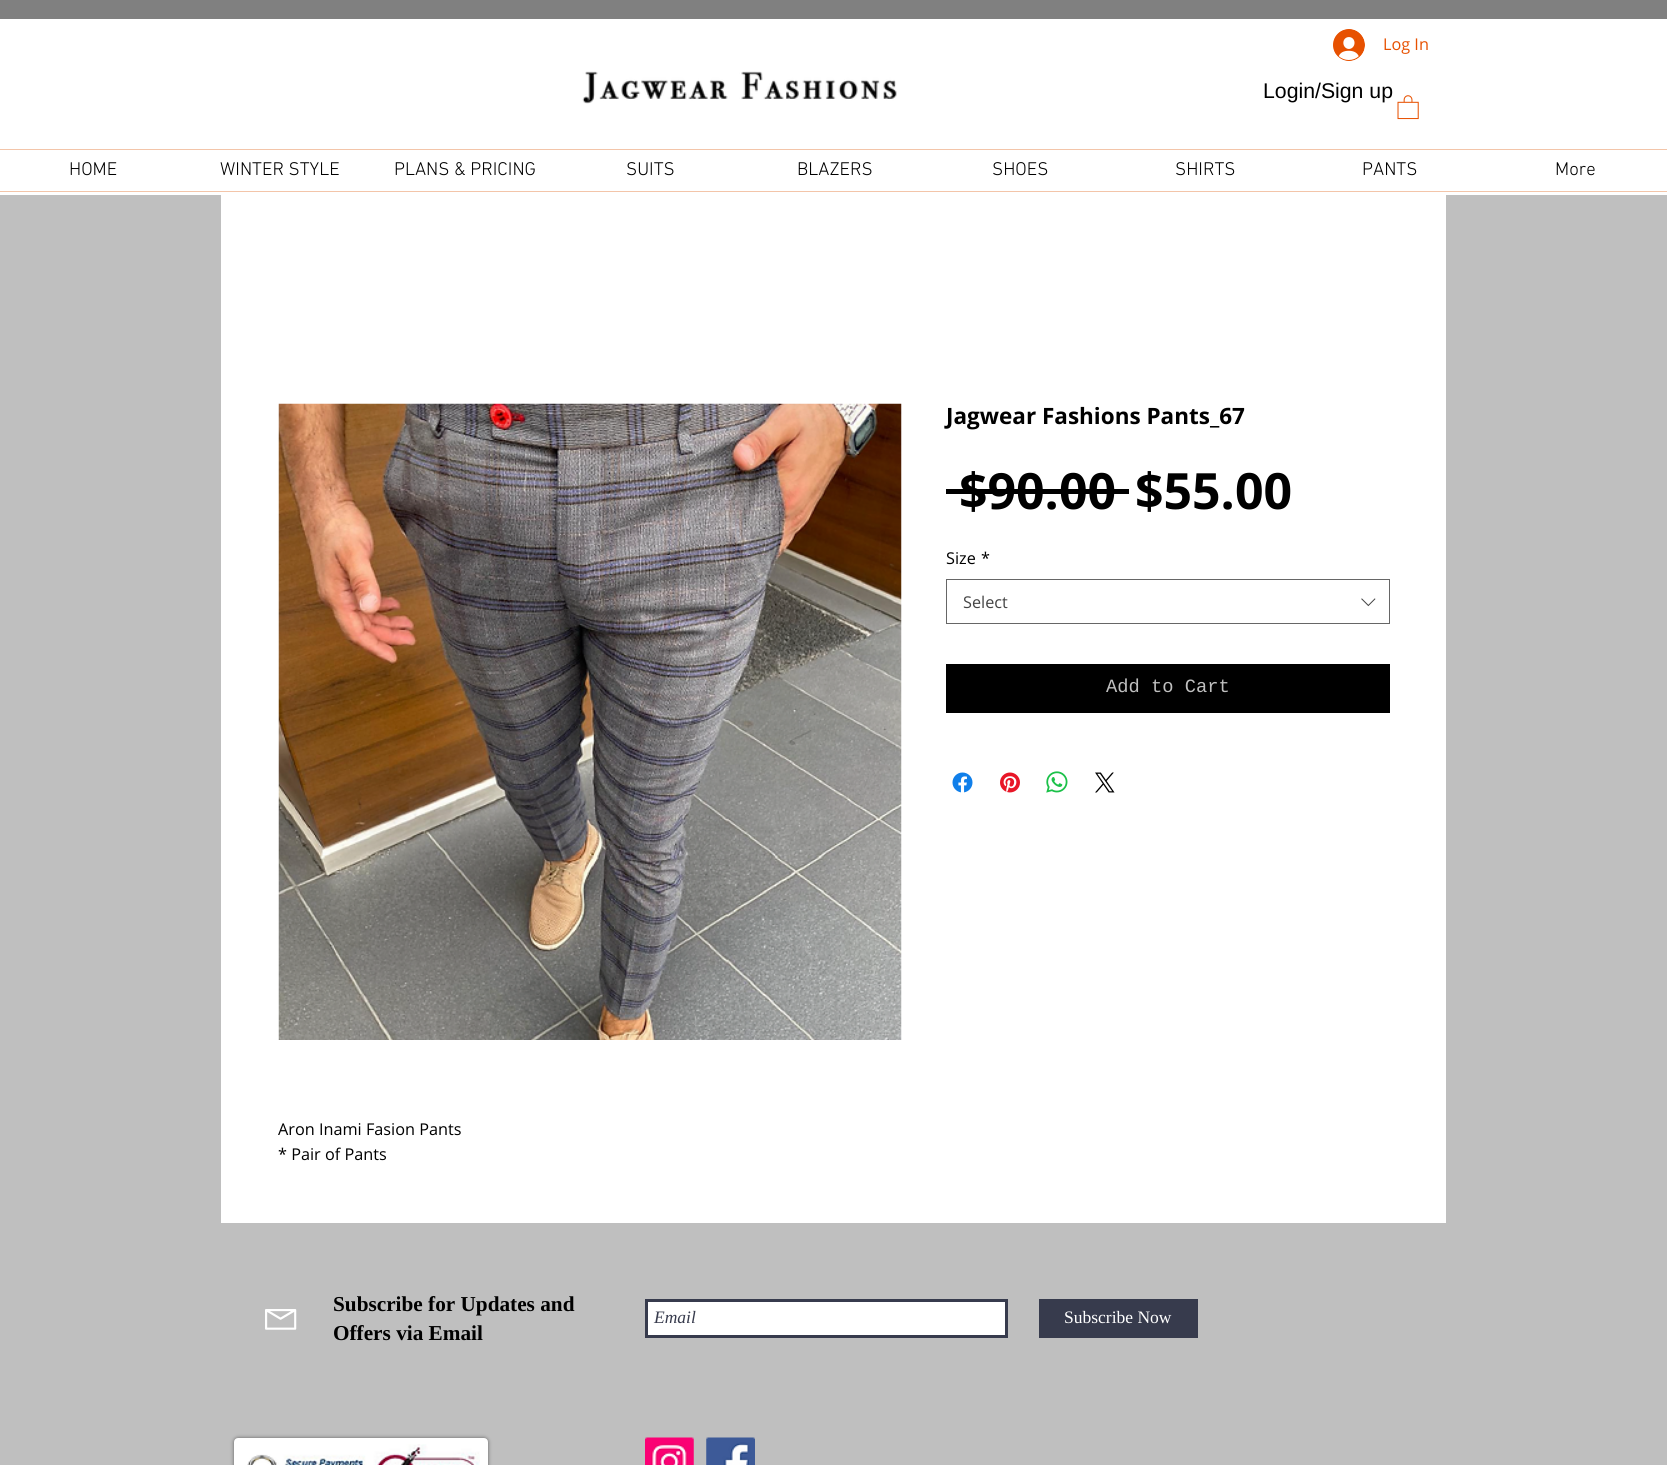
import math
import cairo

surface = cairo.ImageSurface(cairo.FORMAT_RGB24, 1667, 1465)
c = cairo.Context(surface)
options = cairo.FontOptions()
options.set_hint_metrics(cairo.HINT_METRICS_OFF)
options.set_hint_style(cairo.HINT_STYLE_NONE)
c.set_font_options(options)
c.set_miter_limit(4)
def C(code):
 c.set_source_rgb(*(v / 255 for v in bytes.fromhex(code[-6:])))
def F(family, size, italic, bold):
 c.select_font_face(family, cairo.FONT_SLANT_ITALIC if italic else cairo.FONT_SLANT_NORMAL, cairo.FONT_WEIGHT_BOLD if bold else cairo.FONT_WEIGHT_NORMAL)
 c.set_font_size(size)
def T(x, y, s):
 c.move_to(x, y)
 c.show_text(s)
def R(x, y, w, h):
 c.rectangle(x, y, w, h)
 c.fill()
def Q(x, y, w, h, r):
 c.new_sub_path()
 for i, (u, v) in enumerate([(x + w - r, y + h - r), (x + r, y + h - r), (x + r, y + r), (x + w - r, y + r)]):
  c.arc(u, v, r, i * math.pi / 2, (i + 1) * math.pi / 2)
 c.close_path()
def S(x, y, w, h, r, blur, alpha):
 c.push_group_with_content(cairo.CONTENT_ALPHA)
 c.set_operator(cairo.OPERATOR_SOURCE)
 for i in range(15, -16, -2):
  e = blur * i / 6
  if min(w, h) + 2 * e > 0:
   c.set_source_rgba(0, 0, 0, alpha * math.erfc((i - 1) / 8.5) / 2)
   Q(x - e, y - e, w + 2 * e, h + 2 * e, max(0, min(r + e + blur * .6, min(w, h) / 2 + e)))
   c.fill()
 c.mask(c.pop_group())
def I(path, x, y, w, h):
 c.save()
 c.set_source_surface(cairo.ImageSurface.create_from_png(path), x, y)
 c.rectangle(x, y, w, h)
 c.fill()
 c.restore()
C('bfbfbf')
c.paint()
C('ffffff')
R(0,19,1667,176)
C('808080')
R(0,0,1667,19)
I('1.png',1333,29,32,32)
F('Open Sans',16.25,0,0)
C('e75101')
T(1383,50,'Log In')
I('2.png',582,71,315,33)
F('Liberation Sans',21.25,0,0)
C('000000')
T(1263,98,'Login/Sign up')
I('3.png',1397,95,22,25)
C('f3c5a9')
R(0,149,1667,1)
R(0,191,1667,1)
F('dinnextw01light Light',18.75,0,0)
C('000000')
T(69,175,'HOME')
T(220,175,'WINTER STYLE')
T(394,175,'PLANS & PRICING')
T(626,175,'SUITS')
T(797,175,'BLAZERS')
T(992,175,'SHOES')
T(1175,175,'SHIRTS')
T(1362,175,'PANTS')
T(1555,175,'More')
C('ffffff')
R(221,195,1225,1028)
F('Open Sans',22.5,0,1)
C('000000')
T(946,424,'Jagwear Fashions Pants_67')
F('Open Sans',50,0,1)
T(959,509,'$90.00')
R(946,489,183,5)
T(1135,509,'$55.00')
F('Open Sans',16.25,0,0)
T(946,564,'Size')
T(981,564,'*')
c.rectangle(946.5,579.5,443,44)
C('666666')
c.set_line_width(1)
c.stroke()
C('444444')
T(963,608,'Select')
I('4.png',1361,598,15,9)
C('000000')
R(946,664,444,49)
F('Liberation Mono',18.75,0,0)
C('bfbfbf')
T(1106,692,'Add to Cart')
I('5.png',952,772,21,21)
I('6.png',1000,772,20,21)
I('7.png',1046,771,22,22)
I('8.png',1095,772,20,21)
I('9.png',278,403,624,637)
F('Open Sans',16.25,0,0)
C('000000')
T(278,1135,'Aron Inami Fasion Pants')
T(278,1160,'* Pair of Pants')
I('10.png',265,1309,32,21)
F('Liberation Serif',21.25,0,1)
T(333,1311,'Subscribe for Updates and')
T(333,1340,'Offers via Email')
C('ffffff')
c.rectangle(646.5,1300.5,360,36)
c.fill_preserve()
C('373b4d')
c.set_line_width(3)
c.stroke()
F('Liberation Serif',17.5,1,0)
T(654,1323,'Email')
R(1039,1299,159,39)
F('Liberation Serif',17.5,0,0)
C('ffffff')
T(1064,1323,'Subscribe Now')
C('000000')
S(234,1438,254,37,4,2,.5)
C('ffffff')
Q(235.5,1439.5,251,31,2.5)
c.fill_preserve()
c.stroke()
I('11.png',247,1444,233,21)
I('12.png',645,1437,49,28)
I('13.png',706,1437,49,28)
surface.write_to_png('o.png')
